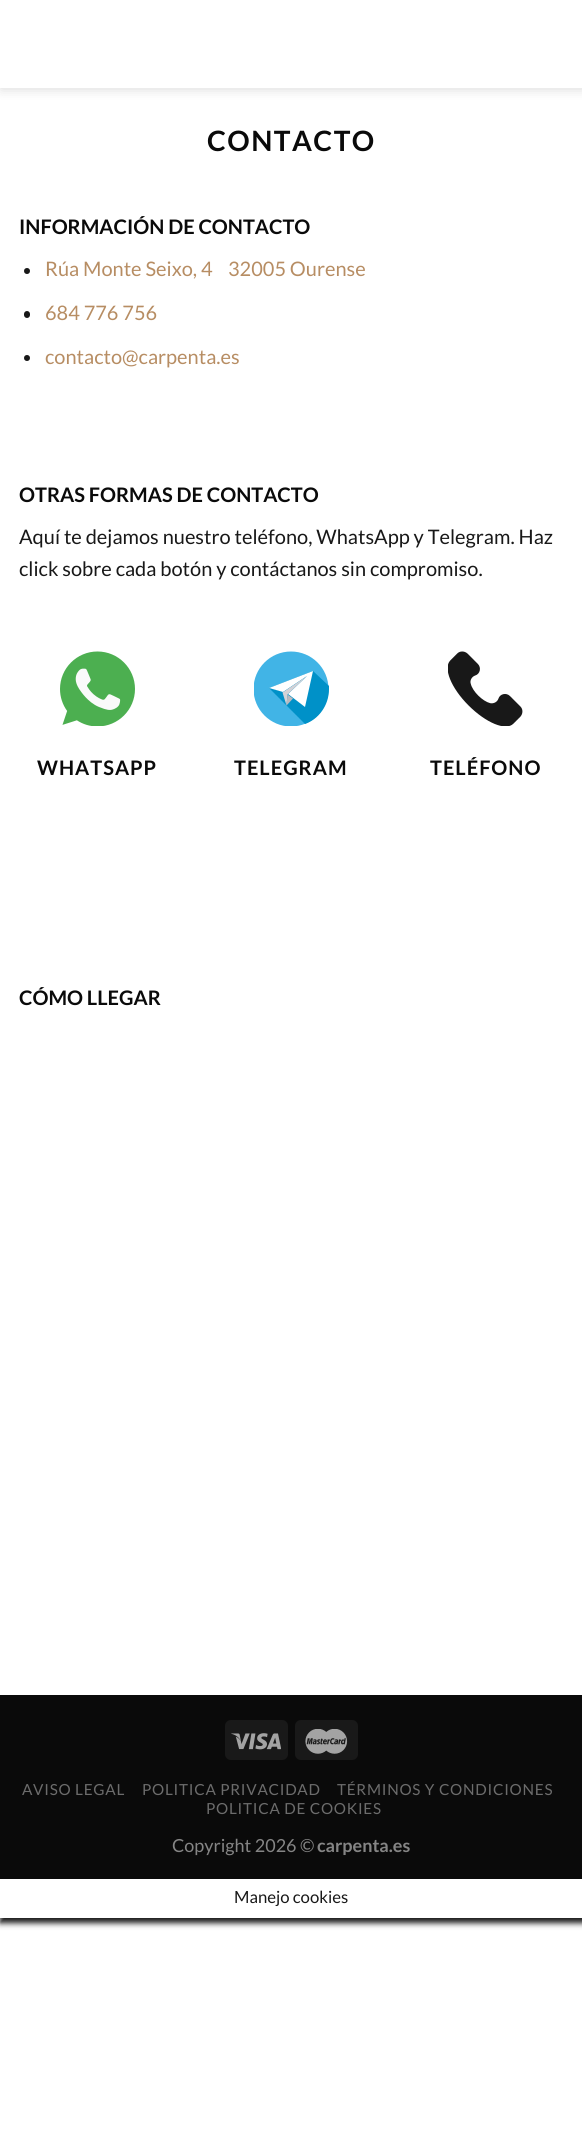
import math
import cairo

surface = cairo.ImageSurface(cairo.FORMAT_RGB24, 582, 2132)
c = cairo.Context(surface)
options = cairo.FontOptions()
options.set_hint_metrics(cairo.HINT_METRICS_OFF)
options.set_hint_style(cairo.HINT_STYLE_NONE)
c.set_font_options(options)
c.set_miter_limit(4)
def C(code):
 c.set_source_rgb(*(v / 255 for v in bytes.fromhex(code[-6:])))
def F(family, size, italic, bold):
 c.select_font_face(family, cairo.FONT_SLANT_ITALIC if italic else cairo.FONT_SLANT_NORMAL, cairo.FONT_WEIGHT_BOLD if bold else cairo.FONT_WEIGHT_NORMAL)
 c.set_font_size(size)
def T(x, y, s):
 c.move_to(x, y)
 c.show_text(s)
def L(x, y, s, letter, word):
 c.move_to(x, y)
 for ch in s:
  c.show_text(ch)
  c.rel_move_to(letter + word * (ch == ' '), 0)
def R(x, y, w, h):
 c.rectangle(x, y, w, h)
 c.fill()
def Q(x, y, w, h, r):
 c.new_sub_path()
 for i, (u, v) in enumerate([(x + w - r, y + h - r), (x + r, y + h - r), (x + r, y + r), (x + w - r, y + r)]):
  c.arc(u, v, r, i * math.pi / 2, (i + 1) * math.pi / 2)
 c.close_path()
def S(x, y, w, h, r, blur, alpha):
 c.push_group_with_content(cairo.CONTENT_ALPHA)
 c.set_operator(cairo.OPERATOR_SOURCE)
 for i in range(15, -16, -2):
  e = blur * i / 6
  if min(w, h) + 2 * e > 0:
   c.set_source_rgba(0, 0, 0, alpha * math.erfc((i - 1) / 8.5) / 2)
   Q(x - e, y - e, w + 2 * e, h + 2 * e, max(0, min(r + e + blur * .6, min(w, h) / 2 + e)))
   c.fill()
 c.mask(c.pop_group())
def I(path, x, y, w, h):
 c.save()
 c.set_source_surface(cairo.ImageSurface.create_from_png(path), x, y)
 c.rectangle(x, y, w, h)
 c.fill()
 c.restore()
C('ffffff')
c.paint()
c.save()
c.set_fill_rule(cairo.FILL_RULE_EVEN_ODD)
c.new_path()
c.move_to(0,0)
c.line_to(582,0)
c.line_to(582,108)
c.line_to(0,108)
c.close_path()
c.move_to(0,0)
c.line_to(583,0)
c.line_to(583,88)
c.line_to(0,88)
c.close_path()
c.clip()
C('000000')
S(1,1,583,88,0,6,.15)
c.restore()
c.set_source_rgba(1,1,1,0.9)
R(0,87,582,1)
F('Lato',28,0,1)
C('0a0a0a')
L(207,151,'CONTACTO',1.5,0)
F('Lato',20,0,1)
T(19,234,'INFORMACIÓN DE CONTACTO')
C('181818')
c.new_path()
c.arc(27,271,3,0,2 * math.pi)
c.fill()
F('Lato',20,0,0)
C('b78d63')
T(45,276,'Rúa Monte Seixo, 4    32005 Ourense')
C('181818')
Q(24,311,6,7,3)
c.fill()
C('b78d63')
T(45,320,'684 776 756')
C('181818')
c.new_path()
c.arc(27,358,3,0,2 * math.pi)
c.fill()
C('b78d63')
T(45,364,'contacto@carpenta.es')
F('Lato',20,0,1)
C('0a0a0a')
T(19,502,'OTRAS FORMAS DE CONTACTO')
F('Lato',20,0,0)
C('181818')
T(19,544,'Aquí te dejamos nuestro teléfono, WhatsApp y Telegram. Haz')
T(19,576,'click sobre cada botón y contáctanos sin compromiso.')
I('1.png',60,651,75,75)
F('Lato',20,0,1)
C('0a0a0a')
L(37,775,'WHATSAPP',1,0)
c.save()
c.rectangle(254,648,75,78)
c.clip()
C('41b4e6')
c.arc(291,689,37.5,0,2 * math.pi)
c.fill()
c.restore()
C('0091c8')
c.new_path()
c.move_to(329,689)
c.line_to(329,686)
c.line_to(313,671)
c.line_to(269,688)
c.line_to(305,724)
c.curve_to(319,719,329,705,329,689)
c.close_path()
c.fill()
C('ffffff')
c.new_path()
c.move_to(288,694)
c.line_to(305,707)
c.line_to(313,671)
c.line_to(269,688)
c.line_to(283,692)
c.line_to(307,676)
c.close_path()
c.fill()
C('d2d2d7')
c.new_path()
c.move_to(282.5,692.5)
c.line_to(286.5,705.5)
c.line_to(287.5,694.5)
c.line_to(307,676)
c.close_path()
c.fill()
C('b9b9be')
c.new_path()
c.move_to(293,698.5)
c.line_to(286.5,705.5)
c.line_to(287.5,694.5)
c.close_path()
c.fill()
C('0a0a0a')
L(234,775,'TELEGRAM',1,0)
I('2.png',448,651,75,75)
L(430,775,'TELÉFONO',1,0)
T(19,1005,'CÓMO LLEGAR')
c.save()
c.set_fill_rule(cairo.FILL_RULE_EVEN_ODD)
c.new_path()
c.move_to(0,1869)
c.line_to(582,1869)
c.line_to(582,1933)
c.line_to(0,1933)
c.close_path()
c.move_to(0,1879)
c.line_to(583,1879)
c.line_to(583,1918)
c.line_to(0,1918)
c.close_path()
c.clip()
C('161616')
S(0,1879,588,44,0,3,1)
c.restore()
R(0,1695,582,184)
C('191919')
Q(225,1720,63,40,6)
c.fill()
I('3.png',231,1733,50,17)
Q(295,1720,63,40,6)
c.fill()
I('4.png',305,1729,43,25)
F('Lato',15.25,0,0)
C('6c6c6c')
L(22,1795,'AVISO LEGAL',.75,0)
L(142,1795,'POLITICA PRIVACIDAD',.75,0)
L(337,1795,'TÉRMINOS Y CONDICIONES',.75,0)
L(206,1814,'POLITICA DE COOKIES',.75,0)
F('Lato',18,0,0)
C('858585')
T(172,1852,'Copyright 2026 ©')
F('Lato',18,0,1)
T(317,1852,'carpenta.es')
F('Lato',16.75,0,0)
C('181818')
T(234,1903,'Manejo cookies')
surface.write_to_png('o.png')
